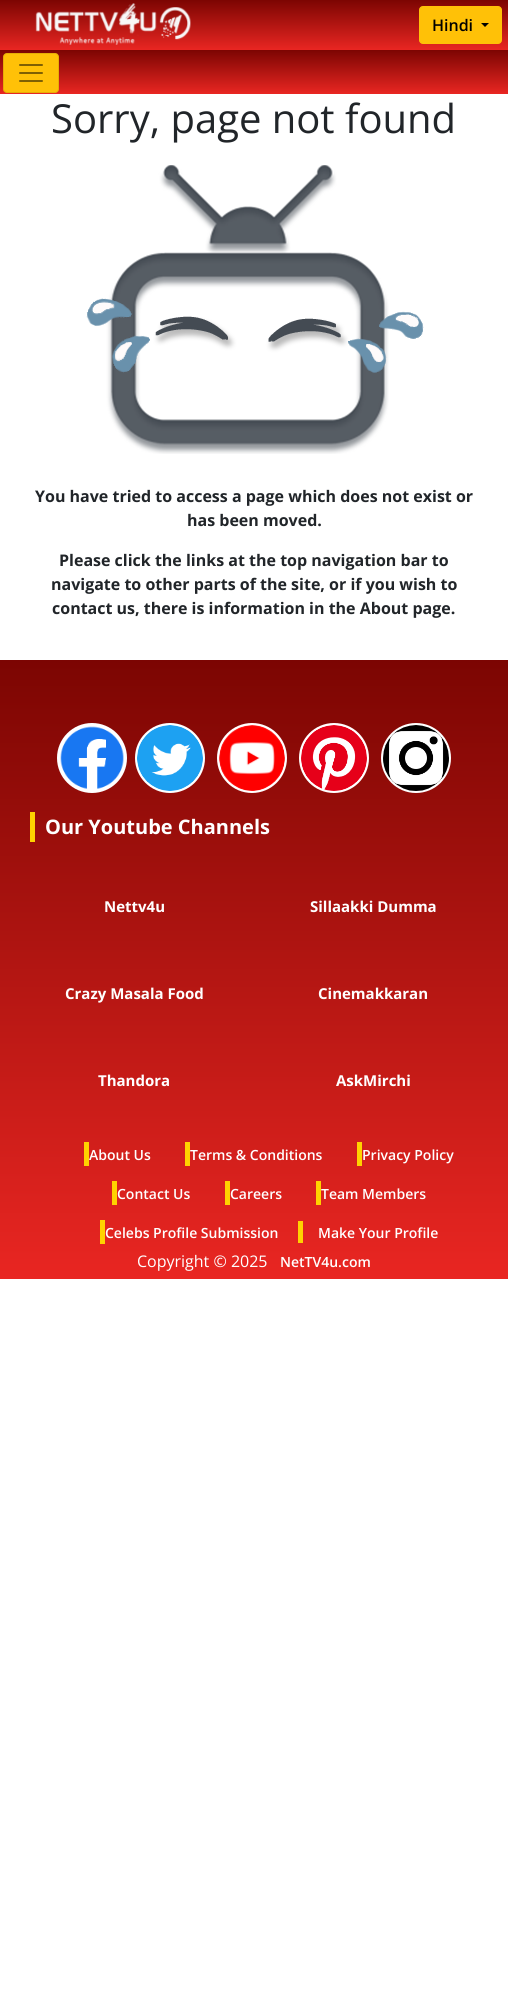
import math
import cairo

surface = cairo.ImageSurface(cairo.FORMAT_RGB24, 508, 2010)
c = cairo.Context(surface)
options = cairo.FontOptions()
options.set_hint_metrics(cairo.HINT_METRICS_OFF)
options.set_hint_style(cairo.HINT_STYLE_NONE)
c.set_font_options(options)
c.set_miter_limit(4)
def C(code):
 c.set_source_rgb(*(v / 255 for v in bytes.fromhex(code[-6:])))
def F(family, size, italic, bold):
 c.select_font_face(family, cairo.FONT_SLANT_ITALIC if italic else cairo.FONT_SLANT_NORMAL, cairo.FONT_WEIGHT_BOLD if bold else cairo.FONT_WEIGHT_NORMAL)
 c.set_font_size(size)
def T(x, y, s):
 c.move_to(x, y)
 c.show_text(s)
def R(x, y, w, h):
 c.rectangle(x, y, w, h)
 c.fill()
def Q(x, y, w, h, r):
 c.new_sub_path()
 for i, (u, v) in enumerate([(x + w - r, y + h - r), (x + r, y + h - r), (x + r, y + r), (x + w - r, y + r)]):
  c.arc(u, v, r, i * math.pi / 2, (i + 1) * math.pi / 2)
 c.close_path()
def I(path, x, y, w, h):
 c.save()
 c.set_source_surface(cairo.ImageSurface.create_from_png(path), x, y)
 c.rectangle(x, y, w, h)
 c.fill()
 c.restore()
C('ffffff')
c.paint()
gradient = cairo.LinearGradient(254,0,254,50)
gradient.add_color_stop_rgba(0,0.486,0.02,0.008,1)
gradient.add_color_stop_rgba(1,0.914,0.149,0.133,1)
c.set_source(gradient)
R(0,0,508,50)
I('1.png',35,3,156,42)
C('ffc107')
Q(419.5,6.5,82,37,3.5)
c.fill_preserve()
c.set_line_width(1)
c.stroke()
F('Open Sans SemiBold',16,0,0)
C('000000')
T(432,31,'Hindi')
c.new_path()
c.move_to(481,23)
c.line_to(489,23)
c.line_to(485,27)
c.close_path()
c.fill()
gradient = cairo.LinearGradient(254,50,254,94)
gradient.add_color_stop_rgba(0,0.486,0.02,0.008,1)
gradient.add_color_stop_rgba(1,0.914,0.149,0.133,1)
c.set_source(gradient)
R(0,50,508,44)
C('ffc107')
Q(3,53,56,40,4)
c.fill()
Q(3.5,53.5,55,39,3.5)
c.set_source_rgba(0,0,0,0.1)
c.stroke()
I('2.png',19,64,24,18)
F('Open Sans',40,0,0)
C('212529')
T(51,133,'Sorry, page not found')
I('3.png',86,165,338,289)
F('Open Sans',16,0,1)
T(35,502,'You have tried to access a page which does not exist or')
T(187,526,'has been moved.')
T(59,566,'Please click the links at the top navigation bar to')
T(51,590,'navigate to other parts of the site, or if you wish to')
T(52,614,'contact us, there is information in the About page.')
gradient = cairo.LinearGradient(254,660,254,1279)
gradient.add_color_stop_rgba(0,0.486,0.02,0.008,1)
gradient.add_color_stop_rgba(1,0.914,0.149,0.133,1)
c.set_source(gradient)
R(0,660,508,619)
C('ffffff')
c.new_path()
c.arc(92,758,35,0,2 * math.pi)
c.fill()
I('4.png',60,726,64,63)
c.arc(170,758,35,0,2 * math.pi)
c.fill()
I('5.png',137,725,66,66)
c.arc(252,758,35,0,2 * math.pi)
c.fill()
I('6.png',219,725,66,66)
c.arc(334,758,35,0,2 * math.pi)
c.fill()
I('7.png',301,725,66,66)
c.arc(416,758,35,0,2 * math.pi)
c.fill()
I('8.png',383,725,66,66)
C('ffd200')
R(30,812,5,30)
F('Open Sans',20,0,1)
C('ffffff')
T(45,834,'Our Youtube Channels')
F('Open Sans',15,0,1)
T(104,912,'Nettv4u')
T(310,912,'Sillaakki Dumma')
T(65,999,'Crazy Masala Food')
T(318,999,'Cinemakkaran')
T(98,1086,'Thandora')
T(336,1086,'AskMirchi')
C('ffd200')
R(84,1142,5,24)
F('Open Sans SemiBold',14,0,0)
C('ffffff')
T(89,1160,'About Us')
C('ffd200')
R(185,1142,5,24)
R(357,1142,5,24)
C('ffffff')
T(362,1160,'Privacy Policy')
C('ffd200')
R(112,1181,5,24)
R(225,1181,5,24)
R(316,1181,5,24)
C('ffffff')
T(321,1199,'Team Members')
C('ffd200')
R(100,1220,5,24)
C('ffffff')
T(105,1238,'Celebs Profile Submission')
C('ffd200')
R(298,1221,5,22)
C('ffffff')
T(318,1238,'Make Your Profile')
T(230,1199,'Careers')
T(117,1199,'Contact Us')
T(190,1160,'Terms & Conditions')
F('Open Sans',16,0,0)
T(137,1267,'Copyright © 2025')
F('Open Sans SemiBold',14,0,0)
T(280,1267,'NetTV4u.com')
surface.write_to_png('o.png')
